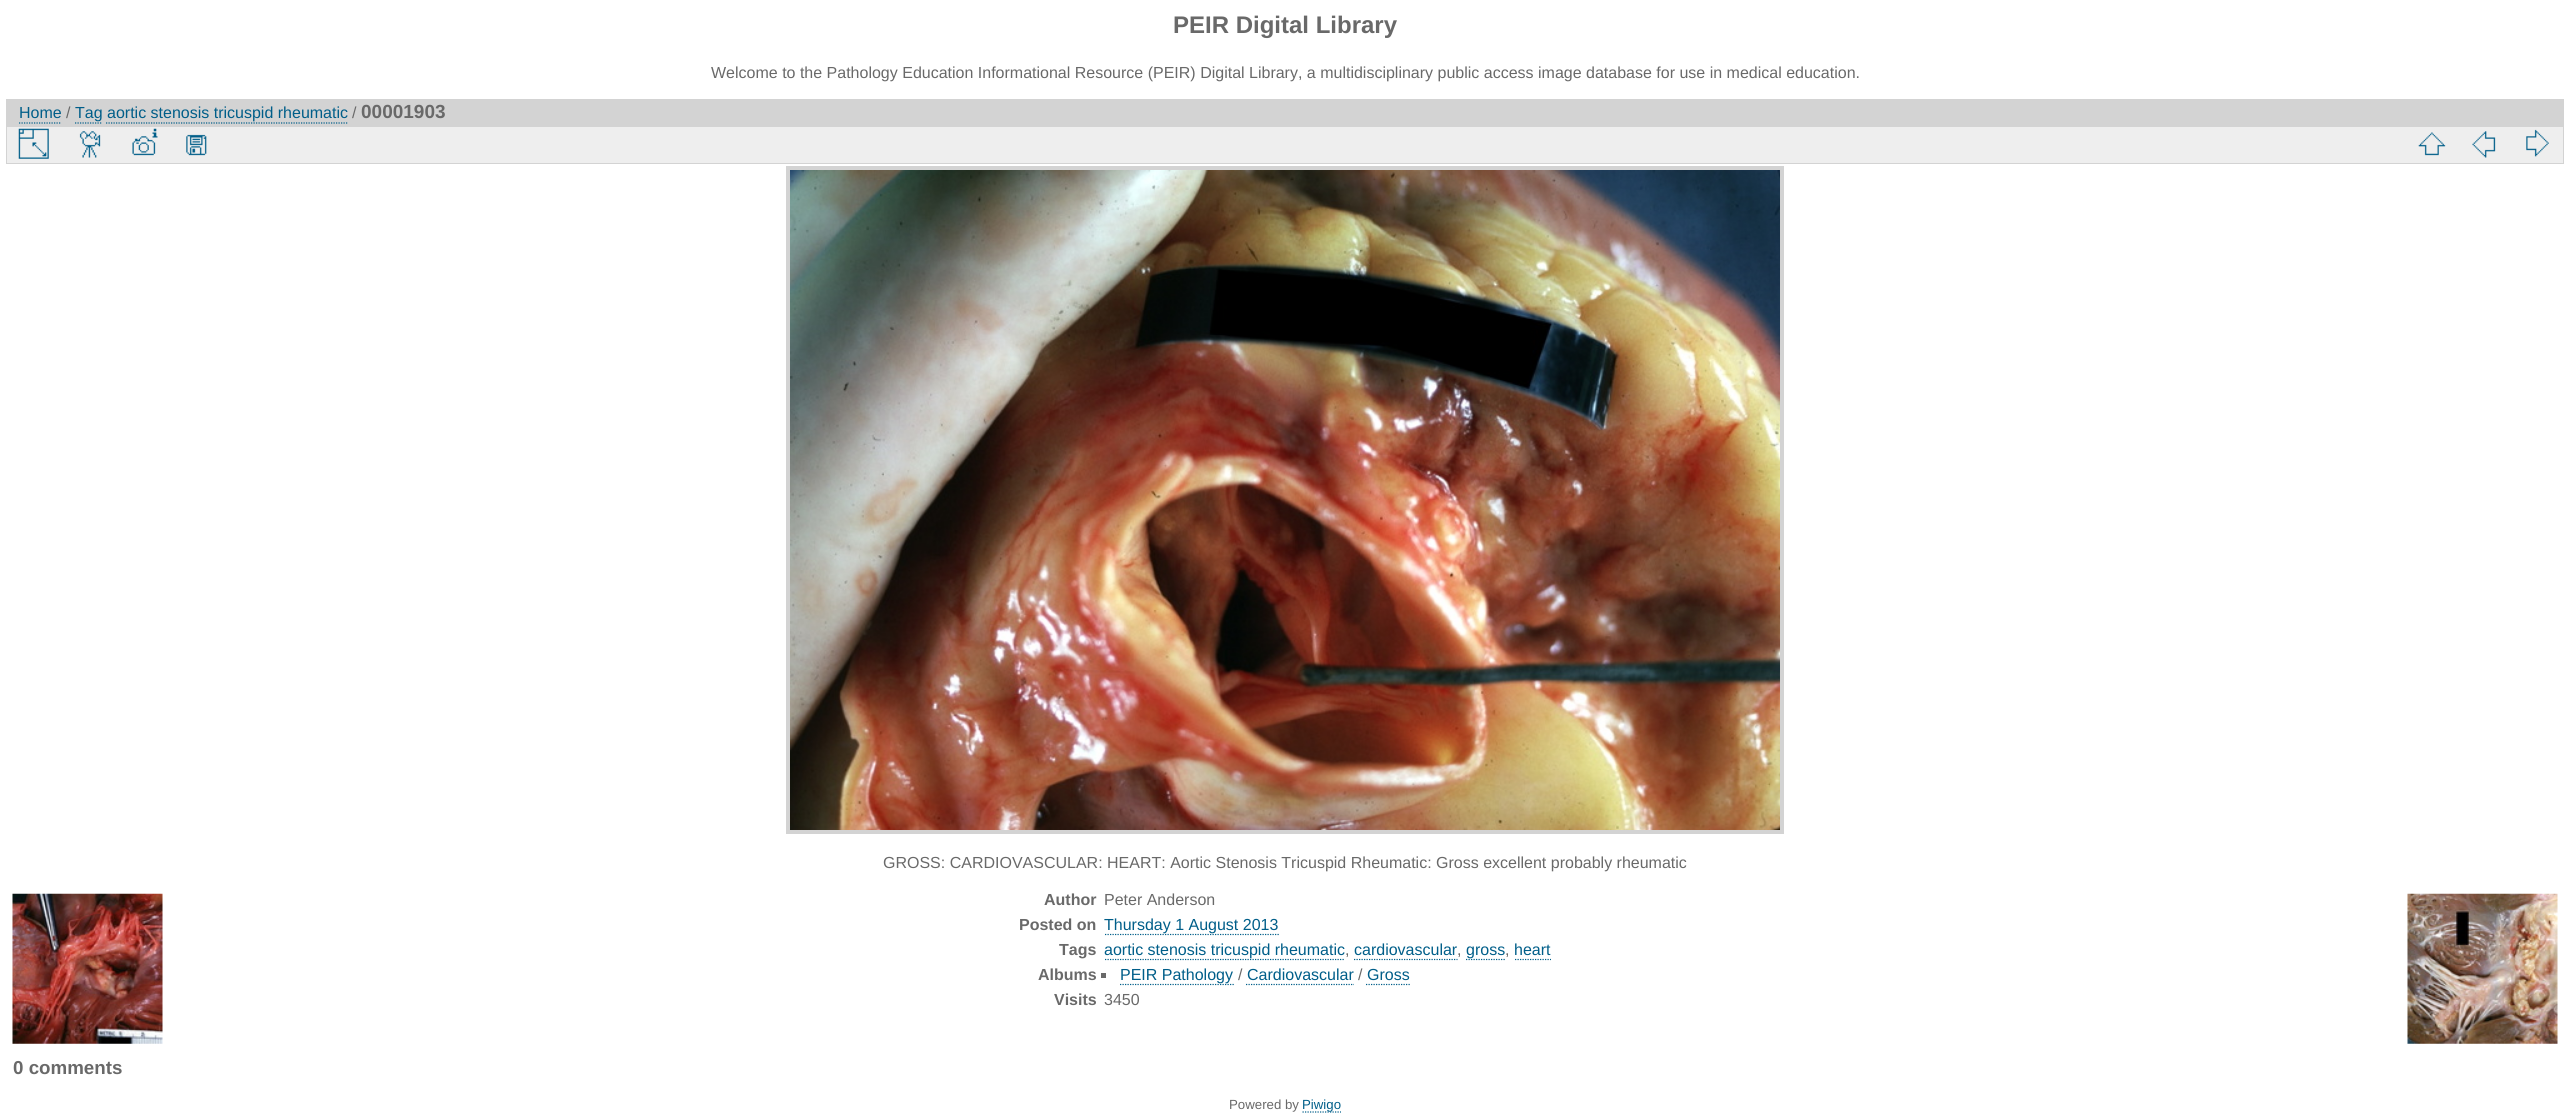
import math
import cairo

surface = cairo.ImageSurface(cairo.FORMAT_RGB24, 2569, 1114)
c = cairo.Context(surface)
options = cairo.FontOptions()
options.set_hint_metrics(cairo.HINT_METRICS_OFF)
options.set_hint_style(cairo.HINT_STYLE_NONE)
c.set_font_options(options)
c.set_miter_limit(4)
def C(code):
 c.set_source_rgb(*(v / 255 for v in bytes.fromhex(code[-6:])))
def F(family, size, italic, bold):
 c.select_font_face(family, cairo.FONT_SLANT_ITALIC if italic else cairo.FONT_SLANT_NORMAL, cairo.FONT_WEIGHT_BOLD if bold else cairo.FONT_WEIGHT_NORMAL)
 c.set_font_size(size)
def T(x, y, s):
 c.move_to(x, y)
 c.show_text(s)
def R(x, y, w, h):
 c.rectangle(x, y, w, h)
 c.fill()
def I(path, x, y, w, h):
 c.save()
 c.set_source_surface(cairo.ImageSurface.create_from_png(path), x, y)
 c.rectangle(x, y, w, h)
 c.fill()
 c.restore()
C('ffffff')
c.paint()
F('Liberation Sans',24,0,1)
C('696969')
T(1173,33,'PEIR Digital Library')
F('Liberation Sans',16,0,0)
T(711,78,'Welcome to the Pathology Education Informational Resource (PEIR) Digital Library, a multidisciplinary public access image database for use in medical education.')
C('d3d3d3')
R(6,99,2558,27)
C('005e89')
T(19,118,'Home')
c.new_path()
c.move_to(19,123)
c.line_to(61,123)
c.set_line_width(1.2)
c.set_dash([1.25,1.25])
c.stroke()
C('696969')
T(66,118,'/')
C('005e89')
T(75,118,'Tag aortic stenosis tricuspid rheumatic')
c.new_path()
c.move_to(75,123)
c.line_to(102.5,123)
c.stroke()
C('696969')
T(352,118,'/')
F('Liberation Sans',19,0,1)
T(361,118,'00001903')
c.new_path()
c.move_to(106,123)
c.line_to(347.5,123)
C('005e89')
c.stroke()
C('eeeeee')
c.rectangle(6.5,126.5,2557,37)
c.fill_preserve()
C('d3d3d3')
c.set_line_width(1)
c.set_dash([])
c.stroke()
I('1.png',18,128,31,31)
I('2.png',79,131,22,27)
I('3.png',132,128,26,28)
I('4.png',186,134,21,22)
I('5.png',2418,132,28,24)
I('6.png',2472,131,24,27)
I('7.png',2526,129,23,28)
c.rectangle(788,168,994,664)
c.set_line_width(4)
c.stroke()
I('8.png',790,170,990,660)
F('Liberation Sans',16,0,0)
C('696969')
T(883,868,'GROSS: CARDIOVASCULAR: HEART: Aortic Stenosis Tricuspid Rheumatic: Gross excellent probably rheumatic')
I('9.png',12,893,151,151)
I('10.png',2407,893,151,151)
F('Liberation Sans',16,0,1)
T(1044,905,'Author')
F('Liberation Sans',16,0,0)
T(1104,905,'Peter Anderson')
F('Liberation Sans',16,0,1)
T(1019,930,'Posted on')
c.new_path()
c.move_to(1105,934.5)
c.line_to(1279,934.5)
C('005e89')
c.set_line_width(1.2)
c.set_dash([1.25,1.25])
c.stroke()
F('Liberation Sans',16,0,0)
T(1104,930,'Thursday 1 August 2013')
F('Liberation Sans',16,0,1)
C('696969')
T(1059,955,'Tags')
c.new_path()
c.move_to(1105,959.5)
c.line_to(1345,959.5)
C('005e89')
c.stroke()
F('Liberation Sans',16,0,0)
T(1104,955,'aortic stenosis tricuspid rheumatic')
C('696969')
T(1345,955,',')
C('005e89')
T(1354,955,'cardiovascular')
c.new_path()
c.move_to(1354,959.5)
c.line_to(1457.5,959.5)
c.stroke()
C('696969')
T(1457,955,',')
c.new_path()
c.move_to(1466,959.5)
c.line_to(1505,959.5)
C('005e89')
c.stroke()
T(1466,955,'gross')
C('696969')
T(1505,955,',')
C('005e89')
T(1514,955,'heart')
c.new_path()
c.move_to(1515,959.5)
c.line_to(1551,959.5)
c.stroke()
F('Liberation Sans',16,0,1)
C('696969')
T(1038,980,'Albums')
R(1101,973,5,5)
c.new_path()
c.move_to(1120,984.5)
c.line_to(1234,984.5)
C('005e89')
c.stroke()
F('Liberation Sans',16,0,0)
T(1120,980,'PEIR Pathology')
C('696969')
T(1238,980,'/')
C('005e89')
T(1247,980,'Cardiovascular')
c.new_path()
c.move_to(1246,984.5)
c.line_to(1354,984.5)
c.stroke()
C('696969')
T(1358,980,'/')
C('005e89')
T(1367,980,'Gross')
c.new_path()
c.move_to(1366,984.5)
c.line_to(1410,984.5)
c.stroke()
F('Liberation Sans',16,0,1)
C('696969')
T(1054,1005,'Visits')
F('Liberation Sans',16,0,0)
T(1104,1005,'3450')
F('Liberation Sans',18.75,0,1)
T(13,1074,'0 comments')
F('Liberation Sans',13.25,0,0)
T(1229,1109,'Powered by')
c.new_path()
c.move_to(1302.5,1112)
c.line_to(1341,1112)
C('005e89')
c.stroke()
T(1302,1109,'Piwigo')
surface.write_to_png('o.png')
